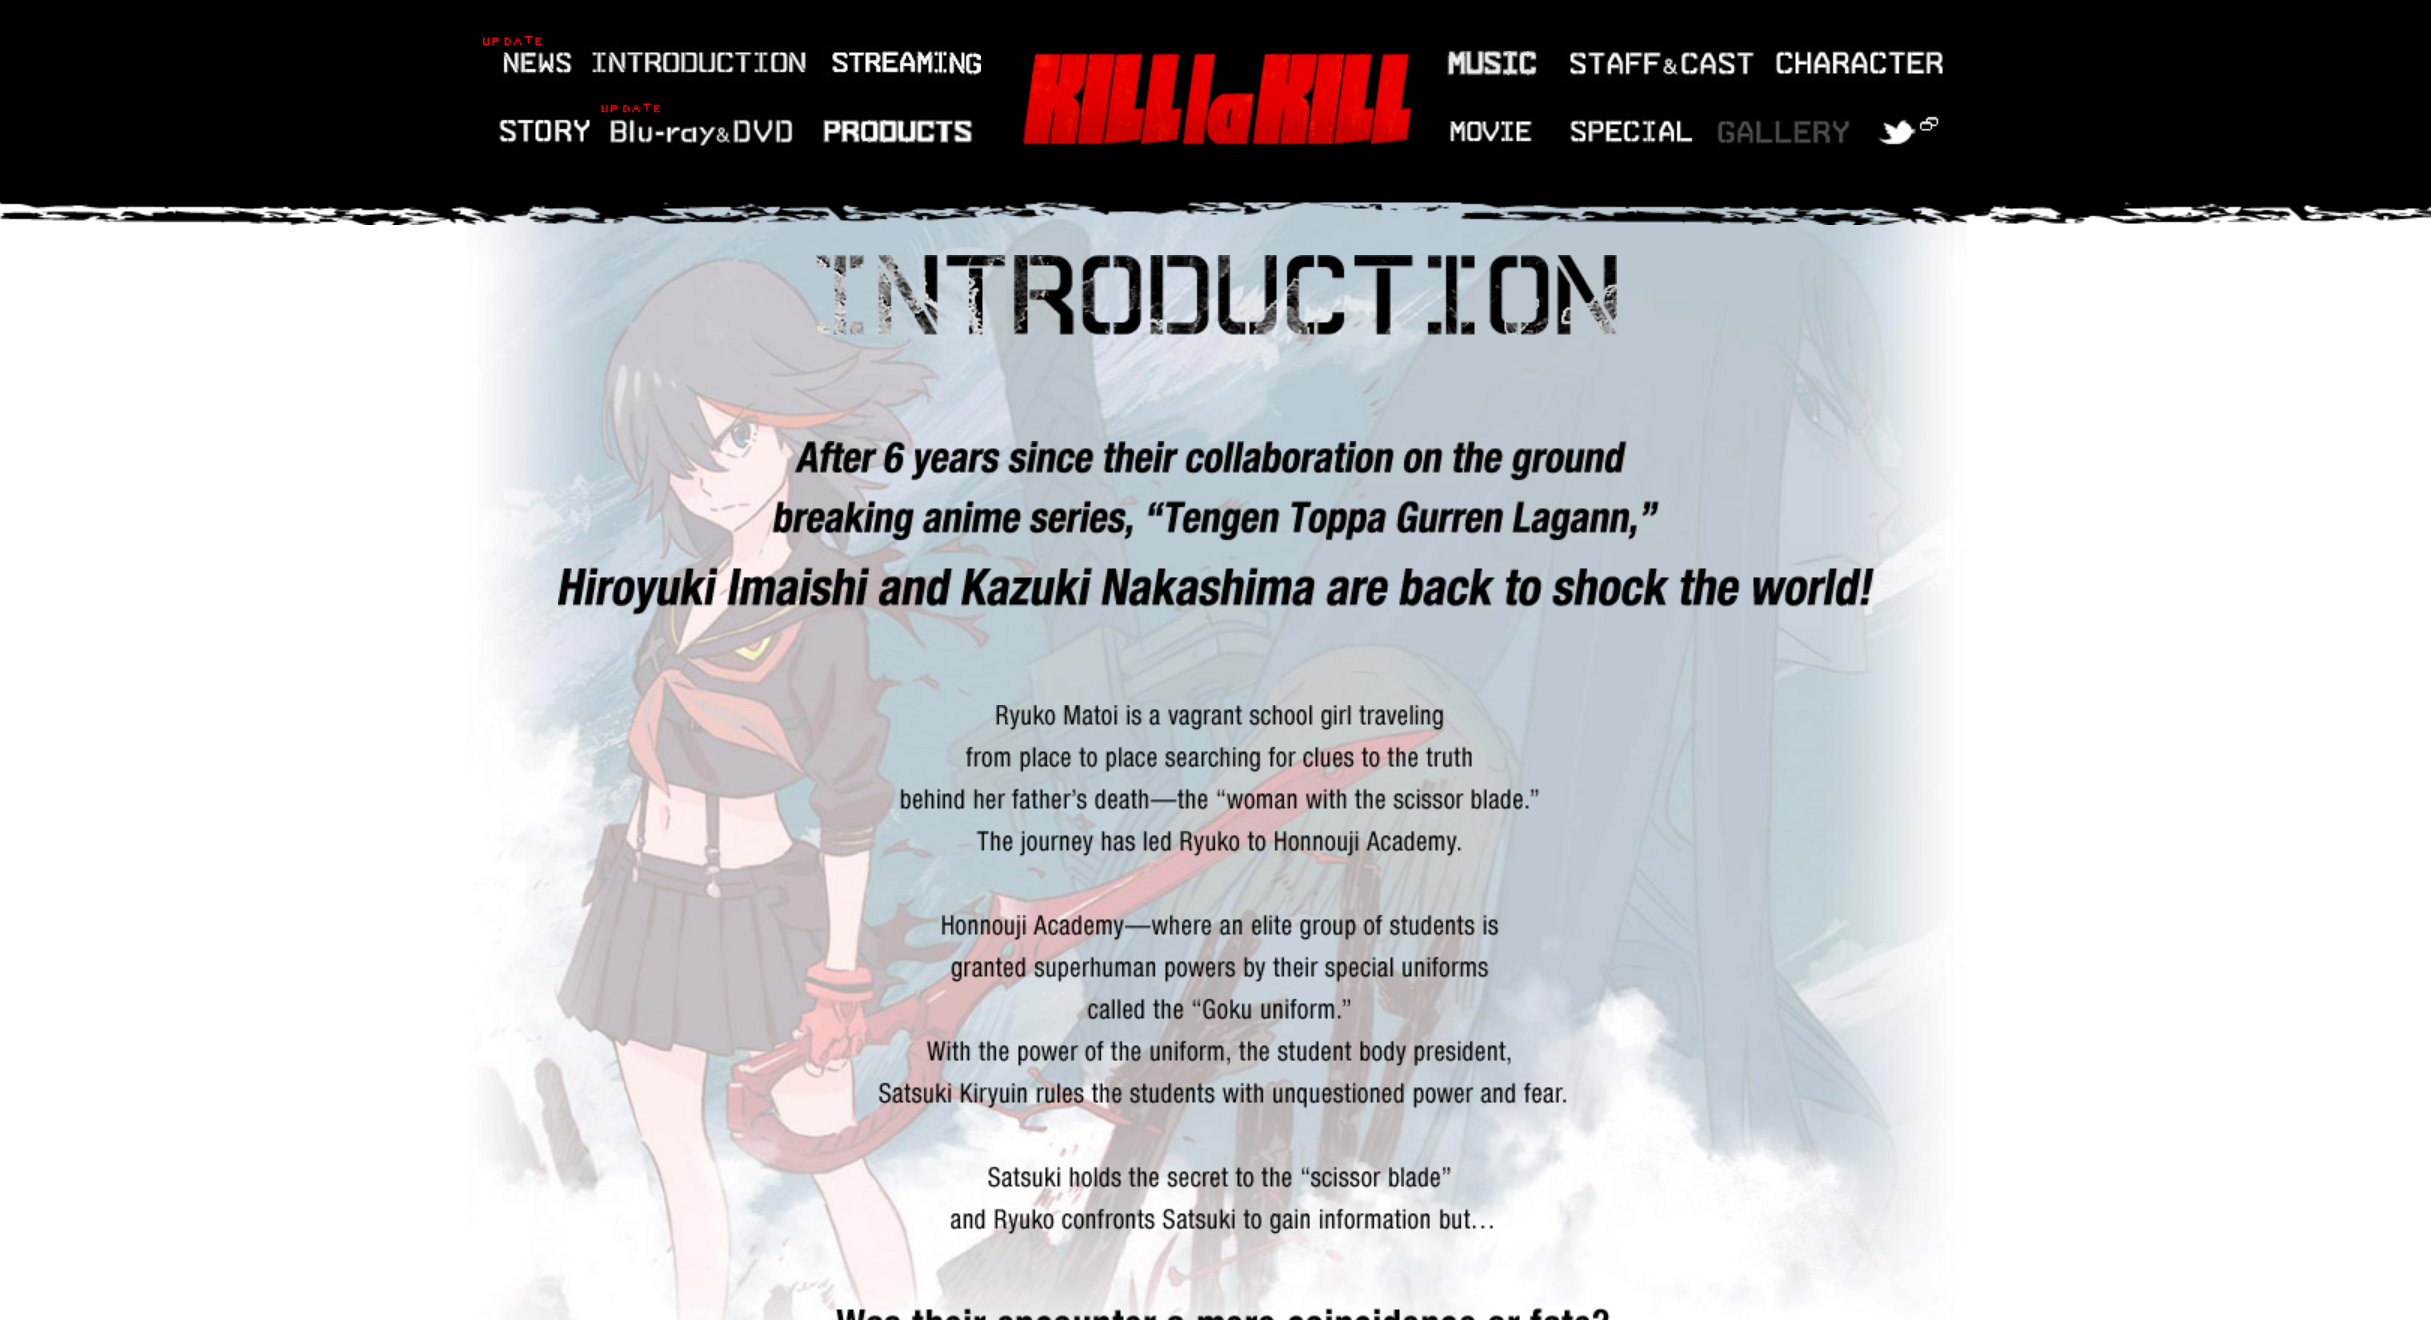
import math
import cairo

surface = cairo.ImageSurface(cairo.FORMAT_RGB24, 2431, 1320)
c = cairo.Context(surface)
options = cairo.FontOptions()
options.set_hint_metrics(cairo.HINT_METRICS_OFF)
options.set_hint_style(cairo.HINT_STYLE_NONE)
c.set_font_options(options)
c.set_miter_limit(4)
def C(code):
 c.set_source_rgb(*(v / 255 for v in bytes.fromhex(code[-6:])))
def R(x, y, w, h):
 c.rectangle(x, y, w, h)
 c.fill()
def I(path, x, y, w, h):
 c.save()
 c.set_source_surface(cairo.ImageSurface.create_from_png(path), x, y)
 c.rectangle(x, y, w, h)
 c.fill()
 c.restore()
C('ffffff')
c.paint()
I('18.png',467,202,1499,1118)
I('1.png',0,195,2431,30)
C('000000')
R(0,0,2431,195)
I('2.png',483,36,59,9)
I('3.png',495,45,77,38)
I('4.png',579,45,229,38)
I('5.png',819,45,162,38)
I('6.png',1447,47,90,29)
I('7.png',1563,47,193,36)
I('8.png',1764,45,179,38)
I('9.png',499,113,93,37)
I('10.png',601,103,59,10)
I('11.png',601,112,192,38)
I('12.png',823,114,152,36)
I('13.png',1449,114,93,36)
I('14.png',1562,113,131,37)
I('15.png',1717,119,133,31)
I('16.png',1877,114,66,36)
I('17.png',1022,53,390,92)
I('19.png',816,255,801,80)
I('20.png',558,441,1316,174)
I('21.png',835,705,775,615)
surface.write_to_png('o.png')
